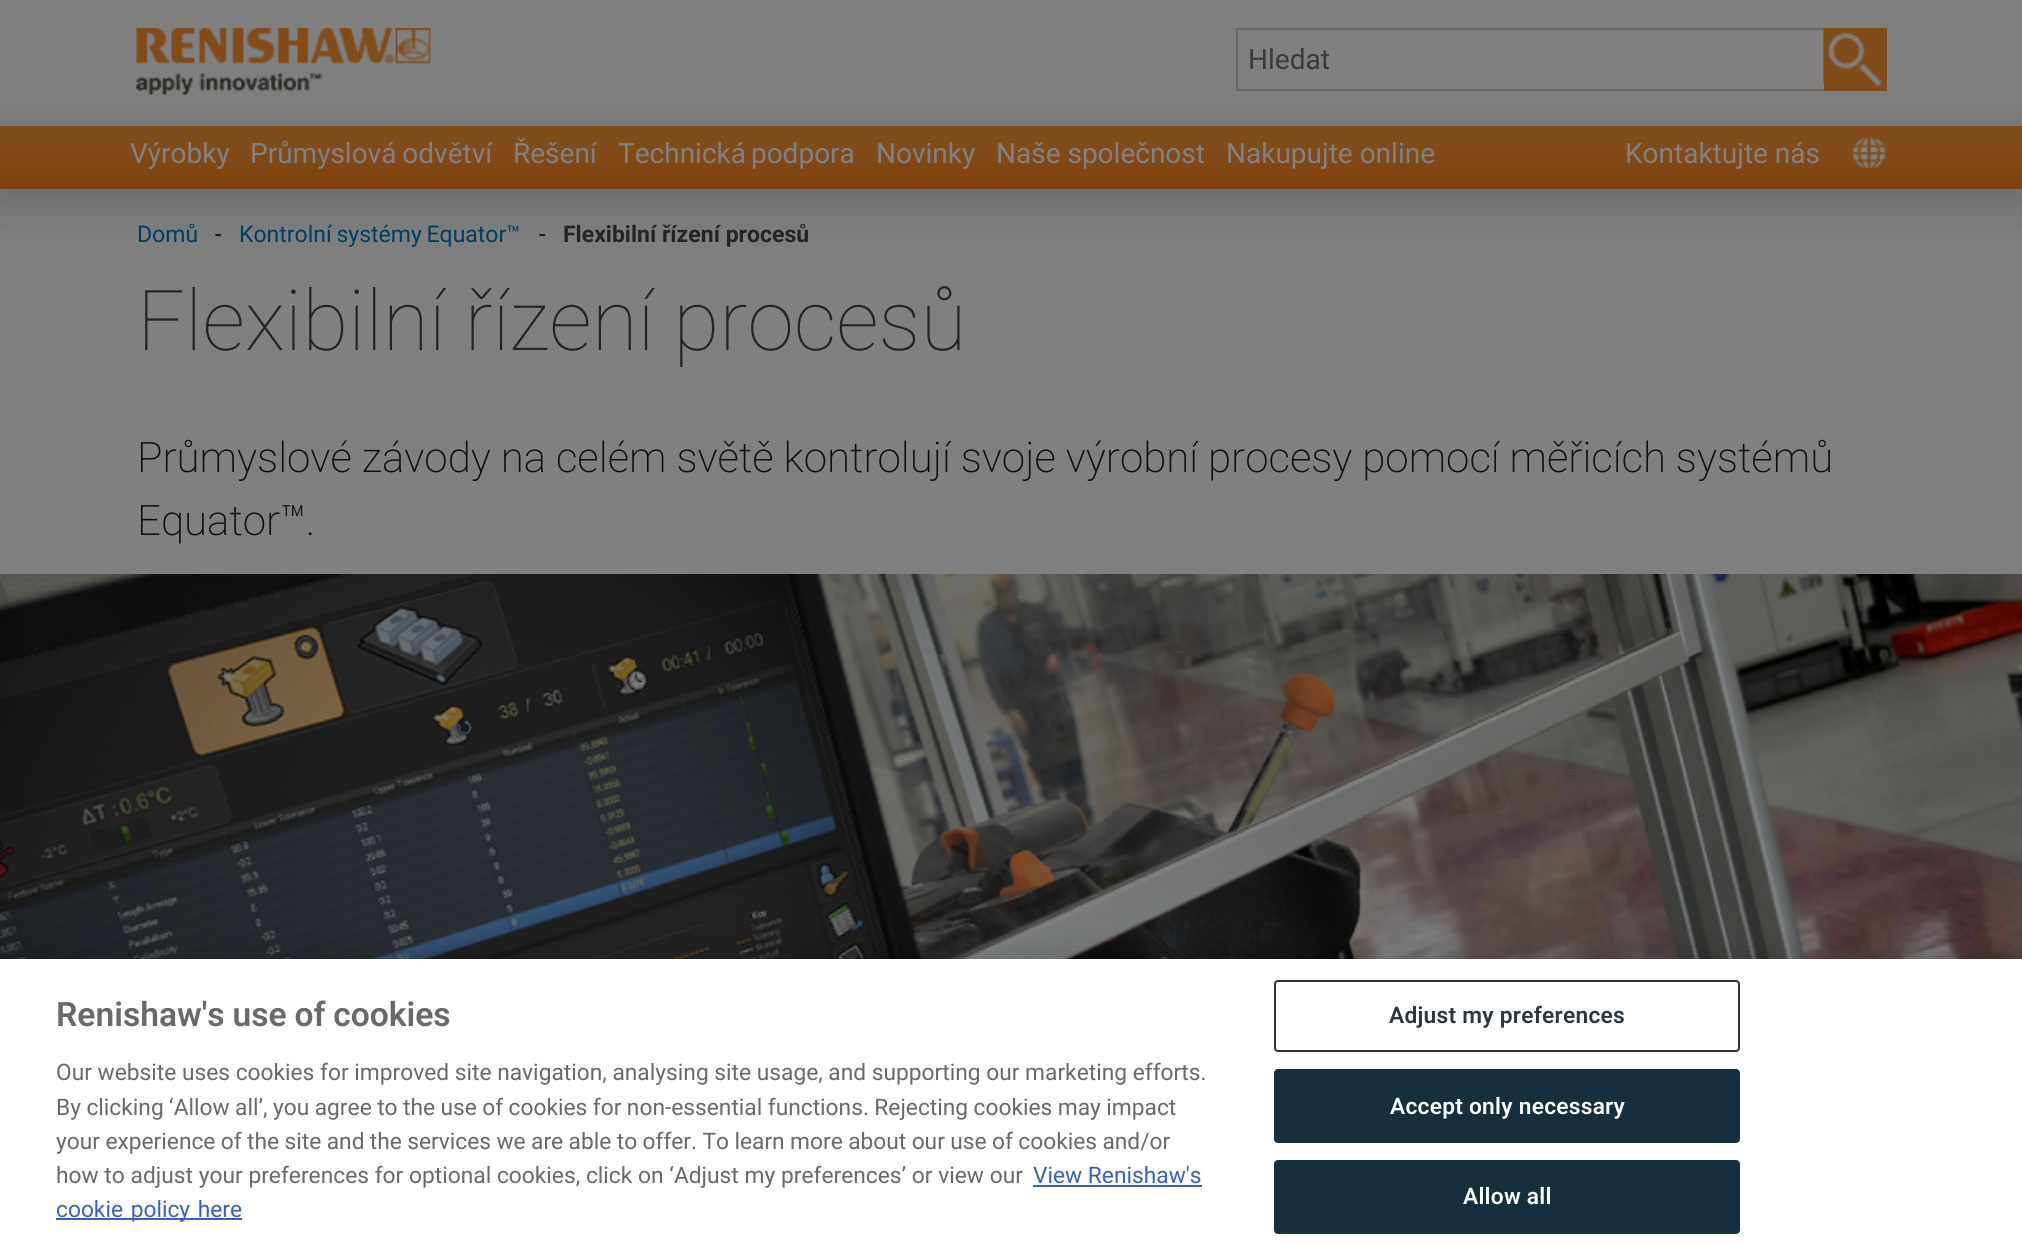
import math
import cairo

surface = cairo.ImageSurface(cairo.FORMAT_RGB24, 2022, 1243)
c = cairo.Context(surface)
options = cairo.FontOptions()
options.set_hint_metrics(cairo.HINT_METRICS_OFF)
options.set_hint_style(cairo.HINT_STYLE_NONE)
c.set_font_options(options)
c.set_miter_limit(4)
def C(code):
 c.set_source_rgb(*(v / 255 for v in bytes.fromhex(code[-6:])))
def F(family, size, italic, bold):
 c.select_font_face(family, cairo.FONT_SLANT_ITALIC if italic else cairo.FONT_SLANT_NORMAL, cairo.FONT_WEIGHT_BOLD if bold else cairo.FONT_WEIGHT_NORMAL)
 c.set_font_size(size)
def T(x, y, s):
 c.move_to(x, y)
 c.show_text(s)
def L(x, y, s, letter, word):
 c.move_to(x, y)
 for ch in s:
  c.show_text(ch)
  c.rel_move_to(letter + word * (ch == ' '), 0)
def R(x, y, w, h):
 c.rectangle(x, y, w, h)
 c.fill()
def Q(x, y, w, h, r):
 c.new_sub_path()
 for i, (u, v) in enumerate([(x + w - r, y + h - r), (x + r, y + h - r), (x + r, y + r), (x + w - r, y + r)]):
  c.arc(u, v, r, i * math.pi / 2, (i + 1) * math.pi / 2)
 c.close_path()
def S(x, y, w, h, r, blur, alpha):
 c.push_group_with_content(cairo.CONTENT_ALPHA)
 c.set_operator(cairo.OPERATOR_SOURCE)
 for i in range(15, -16, -2):
  e = blur * i / 6
  if min(w, h) + 2 * e > 0:
   c.set_source_rgba(0, 0, 0, alpha * math.erfc((i - 1) / 8.5) / 2)
   Q(x - e, y - e, w + 2 * e, h + 2 * e, max(0, min(r + e + blur * .6, min(w, h) / 2 + e)))
   c.fill()
 c.mask(c.pop_group())
def I(path, x, y, w, h):
 c.save()
 c.set_source_surface(cairo.ImageSurface.create_from_png(path), x, y)
 c.rectangle(x, y, w, h)
 c.fill()
 c.restore()
C('808080')
c.paint()
C('110d0b')
S(-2,138,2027,67,0,21,.2)
I('1.png',136,28,295,67)
C('6b6866')
R(1236,28,588,2)
R(1236,89,588,2)
R(1236,28,2,63)
F('Roboto',28,0,0)
C('3b3b3b')
T(1248,69,'Hledat')
C('804d1a')
R(1826,30,59,59)
I('2.png',1823,28,59,59)
c.rectangle(1825,29,61,61)
c.stroke()
gradient = cairo.LinearGradient(1012,126,1012,189)
gradient.add_color_stop_rgba(0,0.502,0.302,0.102,1)
gradient.add_color_stop_rgba(.3,0.502,0.302,0.102,1)
gradient.add_color_stop_rgba(1,0.502,0.255,0.047,1)
c.set_source(gradient)
R(0,126,2022,63)
C('808080')
T(130,163,'Výrobky')
L(250,163,'Průmyslová odvětví',0,-1)
T(513,163,'Řešení')
L(618,163,'Technická podpora',0,-2)
T(876,163,'Novinky')
T(996,163,'Naše společnost')
T(1226,163,'Nakupujte online')
T(1625,163,'Kontaktujte nás')
I('3.png',1853,137,33,31)
F('Roboto',23,0,0)
C('003d61')
T(137,242,'Domů')
C('110d0b')
T(215,242,'-')
C('003d61')
L(239,242,'Kontrolní systémy Equator™',0,-1)
C('110d0b')
T(539,242,'-')
F('Roboto',23,0,1)
C('262422')
T(563,242,'Flexibilní řízení procesů')
F('Roboto Thin',84,0,0)
L(137,350,'Flexibilní řízení procesů',0,-1)
F('Roboto ExtraLight',42,0,0)
C('110d0b')
L(137,472,'Průmyslové závody na celém světě kontrolují svoje výrobní procesy pomocí měřicích systémů',0,-.25)
T(137,535,'Equator™.')
I('4.png',0,574,2022,385)
C('000000')
S(0,959,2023,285,0,16,.2)
C('ffffff')
R(0,959,2022,284)
F('Roboto SemiBold',33.6,0,0)
C('696969')
L(56,1026,'Renishaw\'s use of cookies',0,-.5)
F('Roboto',22.75,0,0)
T(56,1080,'Our website uses cookies for improved site navigation, analysing site usage, and supporting our marketing efforts.')
L(56,1115,'By clicking ‘Allow all’, you agree to the use of cookies for non-essential functions. Rejecting cookies may impact',0,-.2)
L(56,1149,'your experience of the site and the services we are able to offer. To learn more about our use of cookies and/or',0,-.25)
L(56,1183,'how to adjust your preferences for optional cookies, click on ‘Adjust my preferences’ or view our',0,.1)
C('3860be')
T(1033,1183,'View Renishaw\'s')
R(1033,1185,169,2)
R(56,1218,186,2)
L(56,1217,'cookie policy here',0,2)
Q(1275,981,464,70,3)
C('2c363f')
c.stroke()
F('Roboto SemiBold',22.75,0,0)
L(1389,1023,'Adjust my preferences',.25,0)
C('152f3f')
Q(1275,1070,464,72,3)
c.fill_preserve()
c.stroke()
C('ffffff')
L(1390,1114,'Accept only necessary',.25,0)
C('152f3f')
Q(1275,1161,464,72,3)
c.fill_preserve()
c.stroke()
C('ffffff')
L(1463,1204,'Allow all',.25,0)
surface.write_to_png('o.png')
